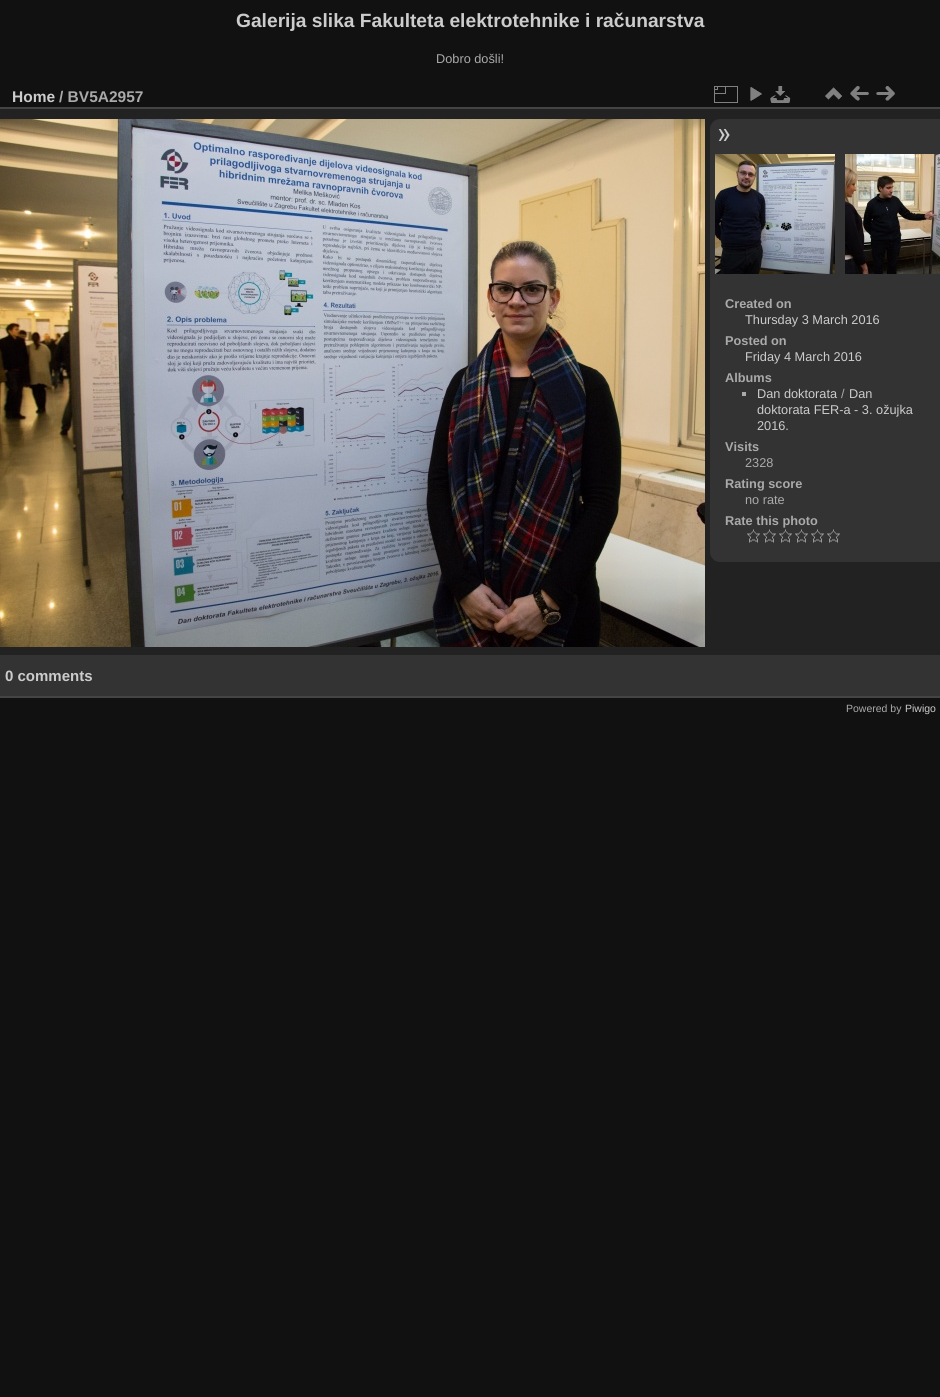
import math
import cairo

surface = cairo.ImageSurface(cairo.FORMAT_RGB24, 940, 1397)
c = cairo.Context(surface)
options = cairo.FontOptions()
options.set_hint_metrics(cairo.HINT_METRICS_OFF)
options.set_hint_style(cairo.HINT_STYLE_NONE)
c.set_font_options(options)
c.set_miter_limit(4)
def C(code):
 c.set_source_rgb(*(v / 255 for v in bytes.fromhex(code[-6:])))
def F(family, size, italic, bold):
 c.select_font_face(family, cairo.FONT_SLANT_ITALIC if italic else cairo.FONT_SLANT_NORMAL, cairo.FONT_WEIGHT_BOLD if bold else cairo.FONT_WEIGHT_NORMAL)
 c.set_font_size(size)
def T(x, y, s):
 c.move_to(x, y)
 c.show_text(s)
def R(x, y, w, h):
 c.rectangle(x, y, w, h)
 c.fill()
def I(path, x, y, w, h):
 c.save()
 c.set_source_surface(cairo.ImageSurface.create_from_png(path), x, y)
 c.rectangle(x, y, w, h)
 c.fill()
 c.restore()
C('111111')
c.paint()
F('Liberation Sans',19.2,0,1)
C('cccccc')
T(236,27,'Galerija slika Fakulteta elektrotehnike i računarstva')
F('Liberation Sans',12.75,0,0)
C('aaaaaa')
T(436,63,'Dobro došli!')
C('222222')
R(0,109,940,546)
C('444444')
R(0,696,940,2)
R(0,107,940,2)
F('Liberation Sans',15.5,0,1)
C('cccccc')
T(12,102,'Home')
C('aaaaaa')
T(59,102,'/ BV5A2957')
I('1.png',714,86,24,17)
I('2.png',750,87,12,14)
I('3.png',770,86,21,17)
I('4.png',825,87,17,13)
I('5.png',850,86,19,15)
I('6.png',876,86,19,15)
I('7.png',0,119,705,528)
C('333333')
c.new_path()
c.move_to(720,119)
c.line_to(940,119)
c.line_to(940,562)
c.line_to(720,562)
c.curve_to(714.5,562,710,557.5,710,552)
c.line_to(710,129)
c.curve_to(710,123.5,714.5,119,720,119)
c.close_path()
c.fill()
I('8.png',718,129,12,12)
I('9.png',715,154,120,120)
I('10.png',845,154,95,120)
F('Liberation Sans',12.75,0,1)
C('aaaaaa')
T(725,308,'Created on')
F('Liberation Sans',12.75,0,0)
C('cccccc')
T(745,324,'Thursday 3 March 2016')
F('Liberation Sans',12.75,0,1)
C('aaaaaa')
T(725,345,'Posted on')
F('Liberation Sans',12.75,0,0)
C('cccccc')
T(745,361,'Friday 4 March 2016')
F('Liberation Sans',12.75,0,1)
C('aaaaaa')
T(725,382,'Albums')
R(742,392,4,4)
F('Liberation Sans',12.75,0,0)
C('cccccc')
T(757,398,'Dan doktorata')
C('aaaaaa')
T(841,398,'/')
C('cccccc')
T(849,398,'Dan')
T(757,414,'doktorata FER-a - 3. ožujka')
T(757,430,'2016.')
F('Liberation Sans',12.75,0,1)
C('aaaaaa')
T(725,451,'Visits')
F('Liberation Sans',12.75,0,0)
T(745,467,'2328')
F('Liberation Sans',12.75,0,1)
T(725,488,'Rating score')
F('Liberation Sans',12.75,0,0)
T(745,504,'no rate')
F('Liberation Sans',12.75,0,1)
T(725,525,'Rate this photo')
I('11.png',747,529,13,14)
I('11.png',763,529,13,14)
I('11.png',779,529,13,14)
I('11.png',795,529,13,14)
I('11.png',811,529,13,14)
I('11.png',827,529,13,14)
C('333333')
R(0,655,940,41)
F('Liberation Sans',15,0,1)
C('cccccc')
T(5,681,'0 comments')
F('Liberation Sans',10.5,0,0)
C('aaaaaa')
T(846,712,'Powered by')
C('cccccc')
T(905,712,'Piwigo')
surface.write_to_png('o.png')
